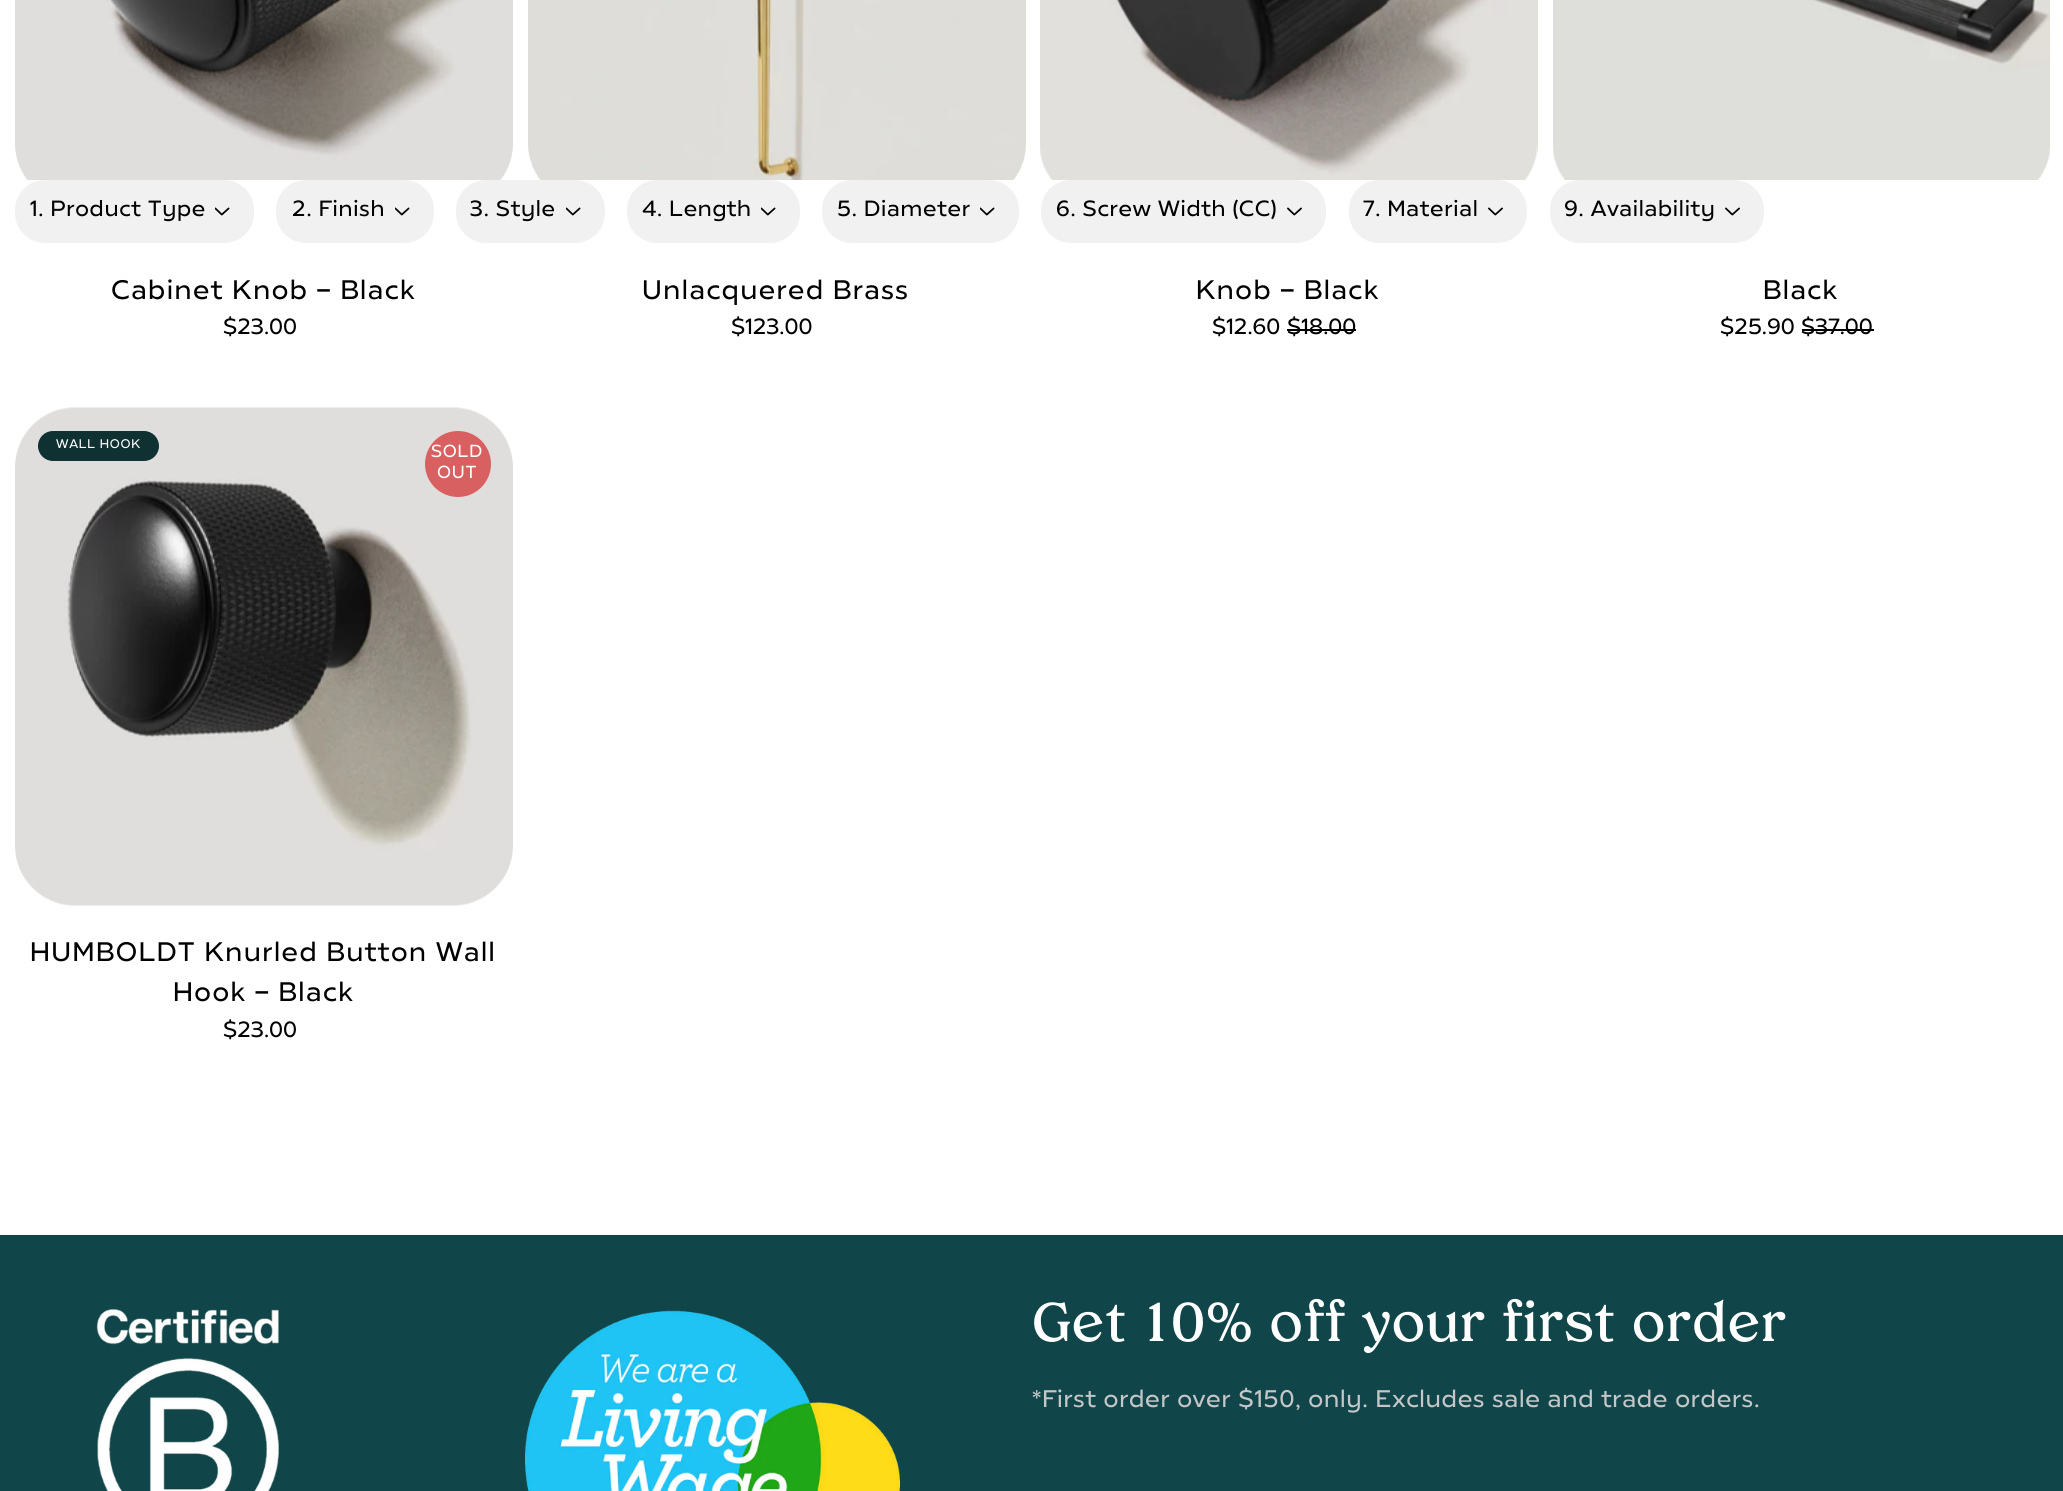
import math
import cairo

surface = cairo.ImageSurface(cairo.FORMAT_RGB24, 2063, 1491)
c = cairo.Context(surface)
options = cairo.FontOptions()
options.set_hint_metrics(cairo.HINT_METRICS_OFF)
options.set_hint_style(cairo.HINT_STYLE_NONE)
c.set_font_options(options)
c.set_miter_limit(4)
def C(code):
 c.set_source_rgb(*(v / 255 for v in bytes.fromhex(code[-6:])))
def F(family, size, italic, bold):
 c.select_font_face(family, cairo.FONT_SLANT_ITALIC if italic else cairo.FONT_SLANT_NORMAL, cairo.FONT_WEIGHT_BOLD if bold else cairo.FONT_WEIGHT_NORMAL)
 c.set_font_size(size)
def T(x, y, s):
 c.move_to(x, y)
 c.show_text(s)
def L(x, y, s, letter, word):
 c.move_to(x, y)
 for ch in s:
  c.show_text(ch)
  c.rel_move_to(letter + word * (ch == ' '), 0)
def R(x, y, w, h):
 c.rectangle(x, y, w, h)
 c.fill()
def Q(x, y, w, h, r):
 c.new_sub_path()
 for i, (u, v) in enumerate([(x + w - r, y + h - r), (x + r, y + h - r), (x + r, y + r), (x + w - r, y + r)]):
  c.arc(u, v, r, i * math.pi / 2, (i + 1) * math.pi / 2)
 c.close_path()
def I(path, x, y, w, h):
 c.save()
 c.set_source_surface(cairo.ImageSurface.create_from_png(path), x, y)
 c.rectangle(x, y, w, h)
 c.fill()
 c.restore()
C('ffffff')
c.paint()
C('f1f1f1')
Q(15,180,239,63,30)
c.fill()
F('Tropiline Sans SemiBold',22,0,0)
C('000000')
L(30,216,'1. Product Type',.75,0)
I('1.png',215,207,15,9)
C('f1f1f1')
Q(276,180,158,63,30)
c.fill()
C('000000')
L(292,216,'2. Finish',.75,0)
I('1.png',395,207,15,9)
C('f1f1f1')
Q(456,180,149,63,30)
c.fill()
C('000000')
L(470,216,'3. Style',.75,0)
I('1.png',566,207,15,9)
C('f1f1f1')
Q(627,180,173,63,30)
c.fill()
C('000000')
L(642,216,'4. Length',.75,0)
I('1.png',761,207,15,9)
C('f1f1f1')
Q(822,180,197,63,30)
c.fill()
C('000000')
L(837,216,'5. Diameter',.75,0)
I('1.png',980,207,15,9)
C('f1f1f1')
Q(1041,180,285,63,30)
c.fill()
C('000000')
L(1056,216,'6. Screw Width (CC)',.75,0)
I('2.png',1287,207,15,9)
C('f1f1f1')
Q(1349,180,178,63,30)
c.fill()
C('000000')
L(1363,216,'7. Material',.75,0)
I('2.png',1488,207,15,9)
C('f1f1f1')
Q(1550,180,214,63,30)
c.fill()
C('000000')
L(1564,216,'9. Availability',.75,0)
I('2.png',1725,207,15,9)
I('3.png',15,0,498,180)
F('Tropiline Sans SemiBold',26.75,0,0)
L(111,299,'Cabinet Knob - Black',1.5,0)
F('Tropiline Sans SemiBold',22,0,0)
T(223,334,'$23.00')
I('4.png',528,0,498,180)
F('Tropiline Sans SemiBold',26.75,0,0)
L(642,299,'Unlacquered Brass',1.5,0)
F('Tropiline Sans SemiBold',22,0,0)
T(731,334,'$123.00')
I('5.png',1040,0,498,180)
F('Tropiline Sans SemiBold',26.75,0,0)
L(1196,299,'Knob - Black',1.5,0)
F('Tropiline Sans SemiBold',22,0,0)
T(1212,334,'$12.60')
T(1287,334,'$18.00')
R(1287,329,69,2)
I('6.png',1553,0,497,180)
F('Tropiline Sans SemiBold',26.75,0,0)
L(1763,299,'Black',1.5,0)
F('Tropiline Sans SemiBold',22,0,0)
T(1720,334,'$25.90')
T(1801,334,'$37.00')
R(1802,329,72,2)
I('7.png',15,407,498,499)
C('0f3132')
Q(38,431,121,30,15)
c.fill()
F('Tropiline Sans SemiBold',12.5,0,0)
C('ffffff')
L(56,448,'WALL HOOK',.75,0)
C('d86060')
c.new_path()
c.arc(458,464,33,0,2 * math.pi)
c.fill()
F('Tropiline Sans SemiBold',17.5,0,0)
C('ffffff')
L(431,457,'SOLD',.75,0)
L(437,478,'OUT',.75,0)
F('Tropiline Sans SemiBold',26.75,0,0)
C('000000')
L(30,961,'HUMBOLDT Knurled Button Wall',1.5,0)
L(173,1001,'Hook - Black',1.5,0)
F('Tropiline Sans SemiBold',22,0,0)
T(223,1037,'$23.00')
C('104649')
R(0,1235,2063,256)
I('8.png',96,1309,183,182)
I('9.png',525,1310,375,181)
F('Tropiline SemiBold',54,0,0)
C('ffffff')
L(1032,1341,'Get 10% off your first order',1.5,0)
F('Tropiline Sans SemiBold',24,0,0)
C('c4c6c7')
L(1032,1407,'*First order over $150, only. Excludes sale and trade orders.',.75,0)
surface.write_to_png('o.png')
